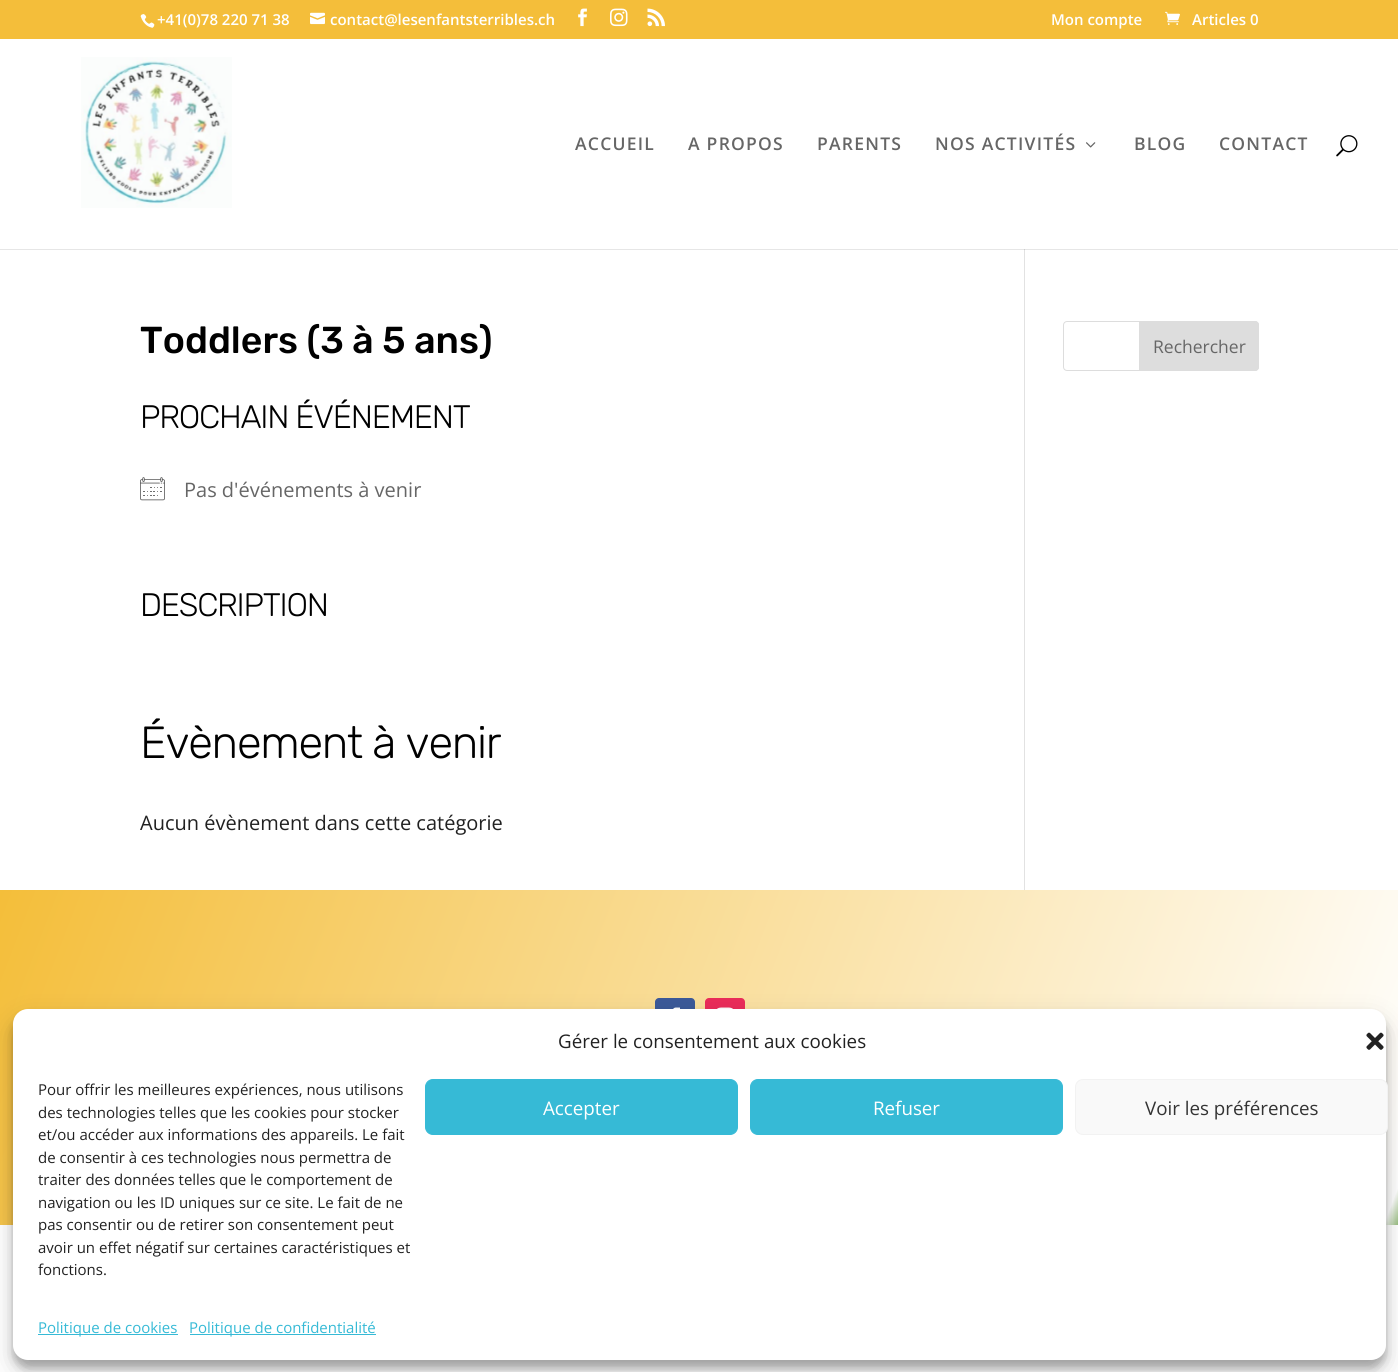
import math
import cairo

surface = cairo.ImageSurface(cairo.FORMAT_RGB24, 1398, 1372)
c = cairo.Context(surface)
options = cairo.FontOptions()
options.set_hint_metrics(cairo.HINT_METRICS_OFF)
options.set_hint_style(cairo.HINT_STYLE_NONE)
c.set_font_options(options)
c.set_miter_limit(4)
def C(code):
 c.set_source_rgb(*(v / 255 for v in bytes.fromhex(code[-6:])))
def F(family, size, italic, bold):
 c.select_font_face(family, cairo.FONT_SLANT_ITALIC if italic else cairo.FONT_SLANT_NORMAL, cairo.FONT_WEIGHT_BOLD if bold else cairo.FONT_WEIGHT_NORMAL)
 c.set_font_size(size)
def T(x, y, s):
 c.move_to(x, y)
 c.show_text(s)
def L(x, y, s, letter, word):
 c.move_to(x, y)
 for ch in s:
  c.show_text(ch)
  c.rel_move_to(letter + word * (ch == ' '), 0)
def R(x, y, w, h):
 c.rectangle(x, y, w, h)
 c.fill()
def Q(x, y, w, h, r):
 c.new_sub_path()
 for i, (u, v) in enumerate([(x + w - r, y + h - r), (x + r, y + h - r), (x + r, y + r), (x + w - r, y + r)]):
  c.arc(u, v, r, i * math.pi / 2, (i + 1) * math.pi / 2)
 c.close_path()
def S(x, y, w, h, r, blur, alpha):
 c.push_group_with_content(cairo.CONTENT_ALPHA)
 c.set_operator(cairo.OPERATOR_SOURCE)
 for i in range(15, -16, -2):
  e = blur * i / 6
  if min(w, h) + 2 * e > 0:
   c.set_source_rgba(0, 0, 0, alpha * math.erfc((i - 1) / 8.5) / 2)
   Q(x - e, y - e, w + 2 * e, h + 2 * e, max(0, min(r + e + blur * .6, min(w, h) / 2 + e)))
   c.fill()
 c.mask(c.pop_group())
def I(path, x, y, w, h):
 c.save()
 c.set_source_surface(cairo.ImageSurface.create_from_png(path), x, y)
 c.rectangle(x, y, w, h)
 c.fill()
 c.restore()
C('ffffff')
c.paint()
C('f4be3a')
R(0,0,1398,39)
I('1.png',140,14,15,14)
F('Open Sans SemiBold',15,0,0)
C('ffffff')
T(157,25,'+41(0)78 220 71 38')
I('2.png',310,12,15,13)
T(330,25,'contact@lesenfantsterribles.ch')
I('3.png',578,8,9,19)
I('4.png',610,8,18,19)
I('5.png',647,8,18,19)
T(1051,25,'Mon compte')
I('6.png',1165,11,15,14)
T(1192,25,'Articles 0')
C('e2e2e2')
R(1024,249,1,641)
c.set_source_rgba(0,0,0,0.1)
c.new_path()
c.move_to(0,249)
c.line_to(0,250)
c.line_to(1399,250)
c.line_to(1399,40)
c.line_to(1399,249)
c.close_path()
c.fill()
I('7.png',81,57,151,151)
F('Open Sans SemiBold',17.5,0,0)
C('666666')
L(575,150,'ACCUEIL',1.25,0)
L(688,150,'A PROPOS',1.25,0)
L(817,150,'PARENTS',1.25,0)
L(935,150,'NOS ACTIVITÉS',1.25,0)
I('8.png',1086,142,10,6)
L(1134,150,'BLOG',1.25,0)
L(1219,150,'CONTACT',1.25,0)
I('9.png',1336,135,22,22)
F('Rubik Medium',37.5,0,0)
C('000000')
T(140,353,'Toddlers (3 à 5 ans)')
F('Rubik Light',32.5,0,0)
L(140,428,'PROCHAIN ÉVÉNEMENT',-1.25,0)
I('10.png',140,477,25,24)
F('Open Sans',20,0,0)
C('666666')
T(184,497,'Pas d\'événements à venir')
F('Rubik Light',32.5,0,0)
C('000000')
L(140,616,'DESCRIPTION',-1.25,0)
F('Rubik Light',45,0,0)
L(140,758,'Évènement à venir',-1.25,0)
F('Open Sans',20,0,0)
C('212121')
T(140,830,'Aucun évènement dans cette catégorie')
Q(1063.5,321.5,195,49,3.5)
C('dddddd')
c.set_line_width(1)
c.stroke()
c.new_path()
c.move_to(1139.5,321.5)
c.line_to(1255,321.5)
c.curve_to(1257,321.5,1258.5,323,1258.5,325)
c.line_to(1258.5,367)
c.curve_to(1258.5,369,1257,370.5,1255,370.5)
c.line_to(1139.5,370.5)
c.close_path()
c.fill_preserve()
c.stroke()
F('Open Sans',17.5,0,0)
C('666666')
T(1153,353,'Rechercher')
gradient = cairo.LinearGradient(34,802,1365,1313)
gradient.add_color_stop_rgba(0,0.957,0.745,0.227,1)
gradient.add_color_stop_rgba(.99,1,1,1,1)
gradient.add_color_stop_rgba(1,0.569,0.722,0.467,1)
gradient.add_color_stop_rgba(1,0.682,0.725,0.4,1)
gradient.add_color_stop_rgba(1,0,0,0,1)
gradient.add_color_stop_rgba(1,1,1,1,1)
c.set_source(gradient)
R(0,890,1398,335)
C('3b5998')
Q(655,998,40,40,4)
c.fill()
I('11.png',673,1007,7,2)
C('ea2c59')
Q(705,998,40,40,4)
c.fill()
I('12.png',717,1007,16,2)
C('000000')
S(13,1016,1373,352,15,4,.23)
S(13,1021,1373,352,15,12.5,.19)
C('ffffff')
Q(13,1009,1373,351,15)
c.fill()
F('Open Sans',18.75,0,0)
C('212121')
T(558,1048,'Gérer le consentement aux cookies')
I('13.png',1366,1032,18,18)
F('Open Sans',15,0,0)
T(38,1095,'Pour offrir les meilleures expériences, nous utilisons')
T(38,1118,'des technologies telles que les cookies pour stocker')
T(38,1140,'et/ou accéder aux informations des appareils. Le fait')
T(38,1163,'de consentir à ces technologies nous permettra de')
T(38,1185,'traiter des données telles que le comportement de')
T(38,1208,'navigation ou les ID uniques sur ce site. Le fait de ne')
T(38,1230,'pas consentir ou de retirer son consentement peut')
T(38,1253,'avoir un effet négatif sur certaines caractéristiques et')
T(38,1275,'fonctions.')
C('36bad6')
Q(425.5,1079.5,312,55,7.5)
c.fill_preserve()
c.stroke()
F('Open Sans',18.75,0,0)
C('ffffff')
T(543,1115,'Accepter')
C('36bad6')
Q(750.5,1079.5,312,55,7.5)
c.fill_preserve()
c.stroke()
C('ffffff')
T(873,1115,'Refuser')
C('f9f9f9')
Q(1075.5,1079.5,312,55,7.5)
c.fill_preserve()
C('f2f2f2')
c.stroke()
C('333333')
T(1145,1115,'Voir les préférences')
C('36bad6')
R(38,1334,140,1)
F('Open Sans',15,0,0)
T(38,1333,'Politique de cookies')
R(190,1334,186,1)
T(189,1333,'Politique de confidentialité')
surface.write_to_png('o.png')
